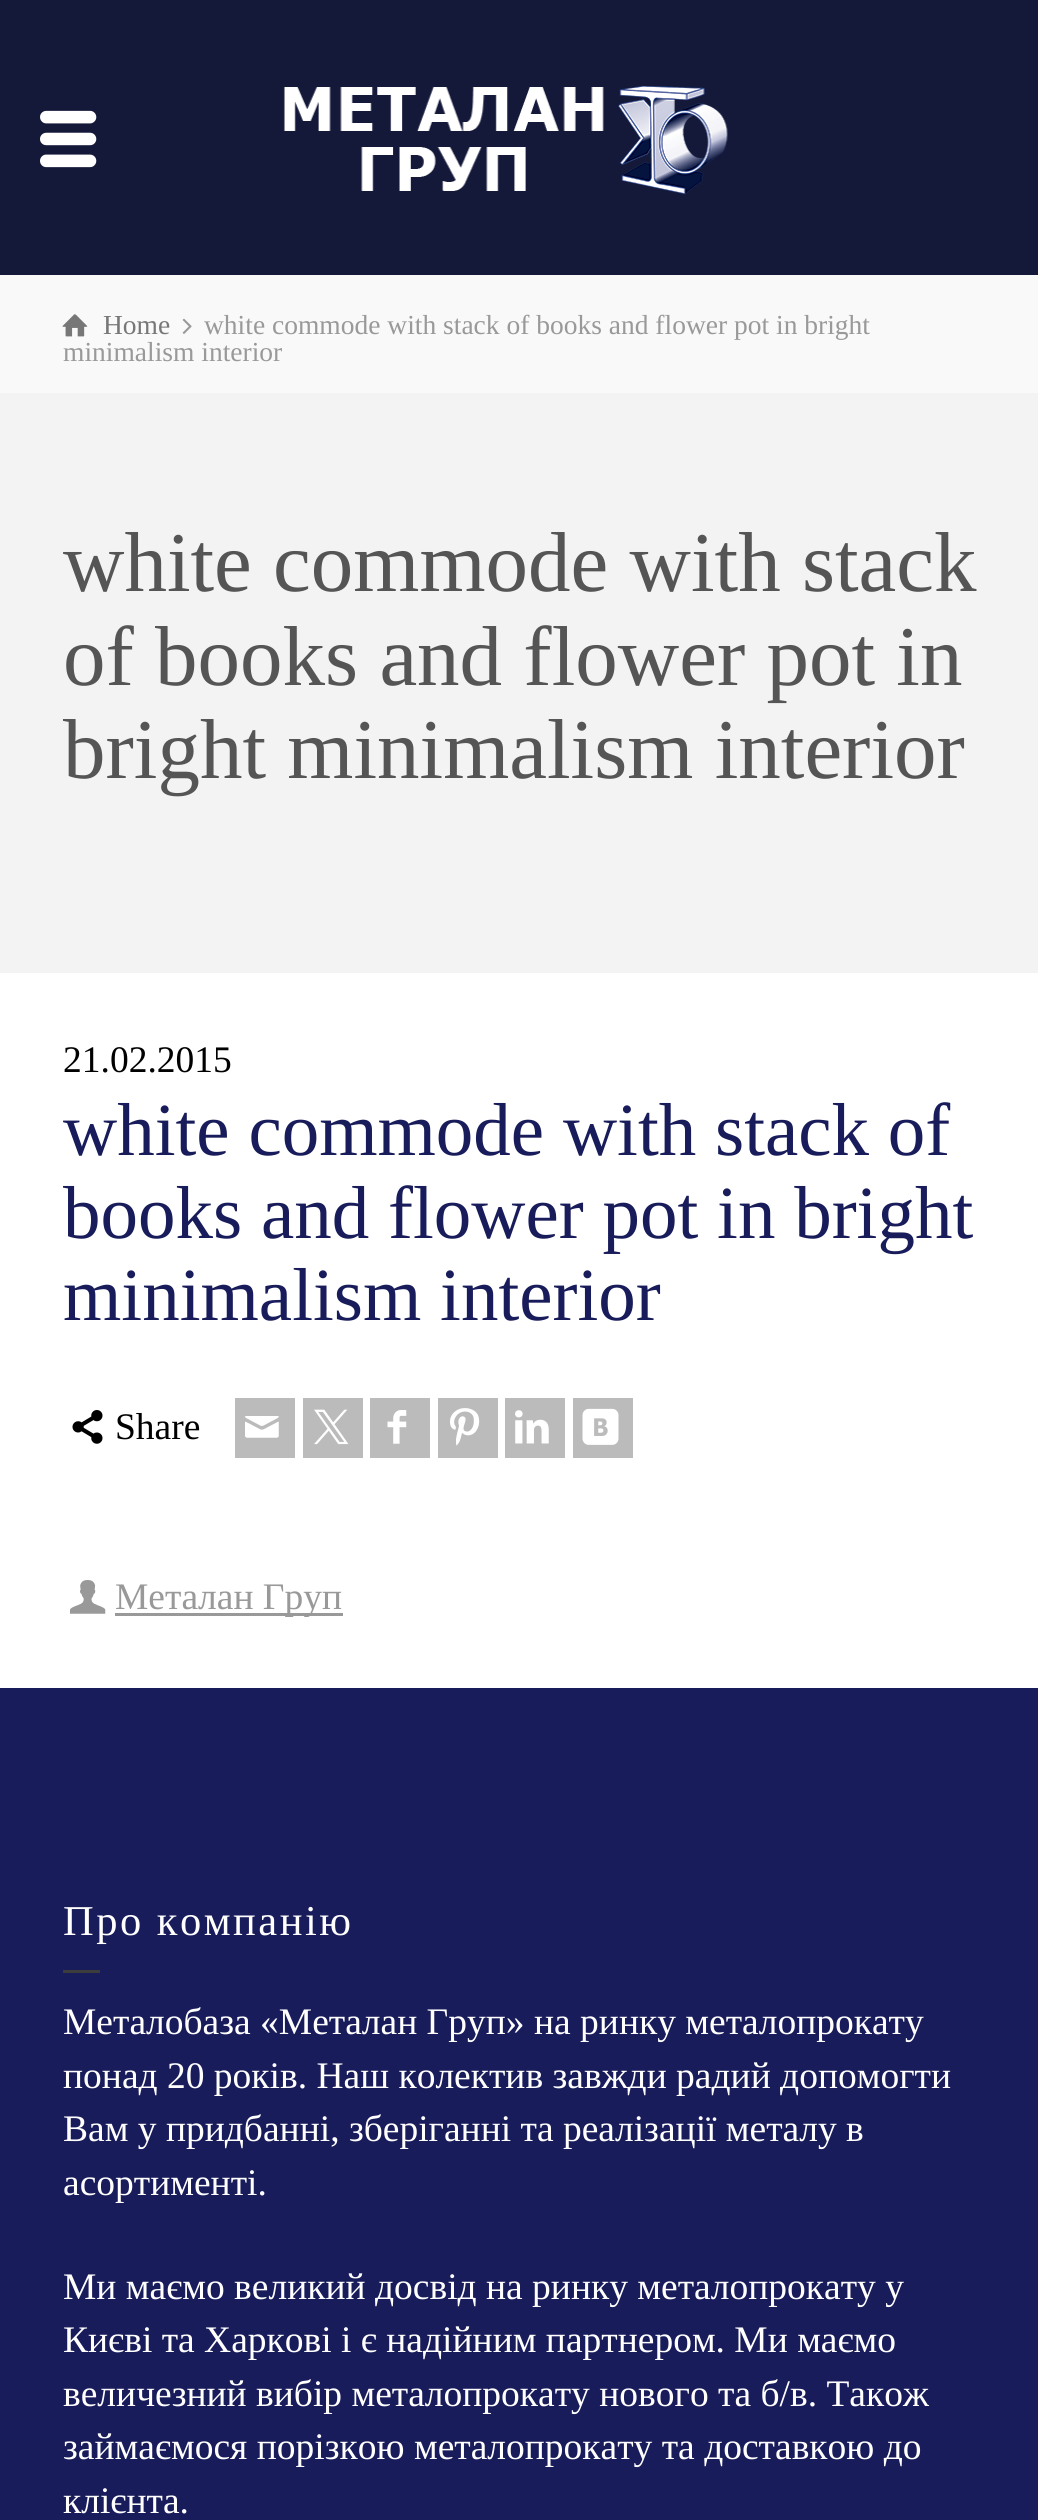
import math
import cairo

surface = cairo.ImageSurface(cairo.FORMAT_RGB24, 1038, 2520)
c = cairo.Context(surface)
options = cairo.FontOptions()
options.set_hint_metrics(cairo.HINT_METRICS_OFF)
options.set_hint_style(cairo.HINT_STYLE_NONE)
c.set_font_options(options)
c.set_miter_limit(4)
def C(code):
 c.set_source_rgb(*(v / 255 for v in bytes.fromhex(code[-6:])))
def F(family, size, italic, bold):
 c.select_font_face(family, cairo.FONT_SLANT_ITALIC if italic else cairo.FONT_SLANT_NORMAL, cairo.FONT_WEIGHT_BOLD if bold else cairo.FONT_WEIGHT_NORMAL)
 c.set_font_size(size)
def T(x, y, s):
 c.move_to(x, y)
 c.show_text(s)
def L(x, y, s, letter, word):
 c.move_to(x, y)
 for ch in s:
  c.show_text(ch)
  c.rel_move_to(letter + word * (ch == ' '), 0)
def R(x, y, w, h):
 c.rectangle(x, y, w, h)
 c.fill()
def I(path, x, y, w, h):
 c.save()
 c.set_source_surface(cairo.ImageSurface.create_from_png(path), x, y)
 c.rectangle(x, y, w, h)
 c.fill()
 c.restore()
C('151939')
c.paint()
I('1.png',40,110,57,58)
I('2.png',283,85,445,109)
C('f3f3f3')
R(0,393,1038,580)
C('f9f9f9')
R(0,275,1038,118)
I('3.png',62,314,26,23)
F('Liberation Serif',27.5,0,0)
C('777777')
T(103,334,'Home')
I('4.png',182,318,10,16)
C('999999')
T(204,334,'white commode with stack of books and flower pot in bright')
T(63,361,'minimalism interior')
F('Liberation Serif',85,0,0)
C('555555')
T(63,591,'white commode with stack')
T(63,685,'of books and flower pot in')
T(63,778,'bright minimalism interior')
C('ffffff')
R(0,973,1038,715)
F('Liberation Serif',37.5,0,0)
C('000000')
T(63,1072,'21.02.2015')
F('Liberation Serif',75,0,0)
C('191c5a')
T(63,1155,'white commode with stack of')
T(63,1238,'books and flower pot in bright')
T(63,1320,'minimalism interior')
I('5.png',72,1410,31,34)
F('Liberation Serif',37.5,0,0)
C('000000')
T(115,1439,'Share')
C('bbbbbb')
R(235,1398,60,60)
I('6.png',245,1416,34,22)
R(303,1398,60,60)
I('7.png',314,1409,35,36)
R(370,1398,60,60)
I('8.png',387,1410,20,34)
R(438,1398,60,60)
I('9.png',450,1408,30,38)
R(505,1398,60,60)
I('10.png',515,1410,34,34)
R(573,1398,60,60)
I('11.png',582,1408,37,37)
I('12.png',70,1580,36,34)
C('999999')
R(115,1613,228,3)
T(115,1609,'Металан Груп')
C('191c5a')
R(0,1688,1038,832)
F('Liberation Serif',42.5,0,0)
C('ffffff')
L(63,1935,'Про компанію',2.5,0)
C('3c3c3c')
R(63,1970,37,3)
F('Liberation Serif',37.5,0,0)
C('ffffff')
T(63,2034,'Металобаза «Металан Груп» на ринку металопрокату')
T(63,2088,'понад 20 років. Наш колектив завжди радий допомогти')
T(63,2141,'Вам у придбанні, зберіганні та реалізації металу в')
T(63,2195,'асортименті.')
T(63,2299,'Ми маємо великий досвід на ринку металопрокату у')
T(63,2352,'Києві та Харкові і є надійним партнером. Ми маємо')
T(63,2406,'величезний вибір металопрокату нового та б/в. Також')
T(63,2459,'займаємося порізкою металопрокату та доставкою до')
T(63,2513,'клієнта.')
surface.write_to_png('o.png')
